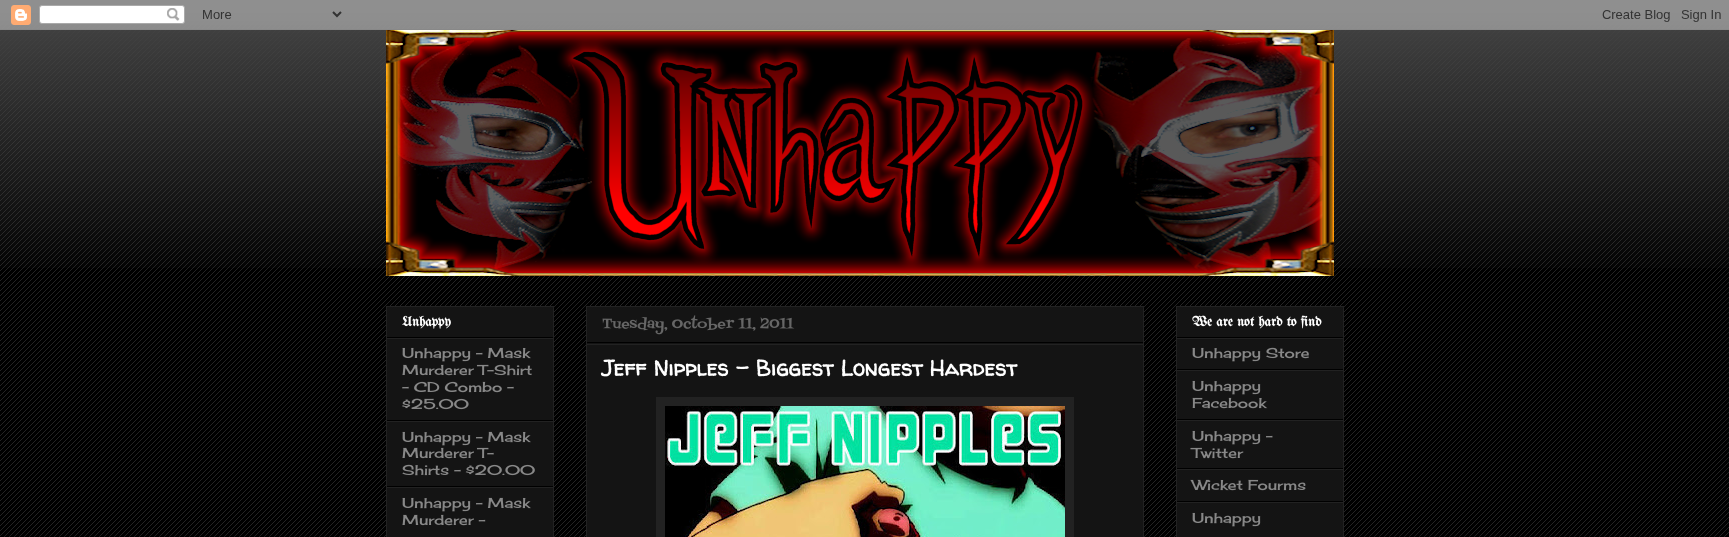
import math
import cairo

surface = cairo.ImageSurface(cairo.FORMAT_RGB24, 1729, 537)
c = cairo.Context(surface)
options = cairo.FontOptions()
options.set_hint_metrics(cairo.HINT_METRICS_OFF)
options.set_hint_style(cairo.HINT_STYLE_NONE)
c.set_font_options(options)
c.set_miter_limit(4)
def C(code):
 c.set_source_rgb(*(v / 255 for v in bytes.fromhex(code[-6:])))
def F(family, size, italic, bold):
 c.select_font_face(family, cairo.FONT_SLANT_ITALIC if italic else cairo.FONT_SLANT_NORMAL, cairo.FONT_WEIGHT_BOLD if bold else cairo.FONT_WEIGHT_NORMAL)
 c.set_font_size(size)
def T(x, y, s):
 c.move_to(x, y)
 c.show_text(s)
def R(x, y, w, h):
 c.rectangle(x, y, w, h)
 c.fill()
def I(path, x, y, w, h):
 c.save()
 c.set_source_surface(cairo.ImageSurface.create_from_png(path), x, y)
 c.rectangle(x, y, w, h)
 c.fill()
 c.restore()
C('000000')
c.paint()
I('1.png',0,13,1729,524)
I('2.png',0,0,1729,268)
I('3.png',0,0,1729,30)
I('4.png',386,30,948,246)
C('141414')
c.rectangle(386.5,306.5,167,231)
c.fill_preserve()
C('222222')
c.set_line_width(1)
c.stroke()
C('000000')
R(387,337,166,1)
F('UnifrakturMaguntia',14,0,1)
C('ffffff')
T(402,326,'Unhappy')
C('222222')
R(387,338,166,1)
C('000000')
R(387,420,166,1)
F('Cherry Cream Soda',14,0,0)
C('888888')
T(402,358,'Unhappy - Mask')
T(402,375,'Murderer T-Shirt')
T(402,392,'- CD Combo -')
T(402,409,'$25.00')
C('222222')
R(387,421,166,1)
C('000000')
R(387,486,166,1)
C('888888')
T(402,442,'Unhappy - Mask')
T(402,458,'Murderer T-')
T(402,475,'Shirts - $20.00')
C('222222')
R(387,487,166,1)
C('888888')
T(402,508,'Unhappy - Mask')
T(402,525,'Murderer -')
C('141414')
c.rectangle(586.5,306.5,557,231)
c.fill_preserve()
C('222222')
c.stroke()
C('000000')
R(587,342,556,1)
F('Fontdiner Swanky',14,0,0)
C('666666')
T(602,328,'Tuesday, October 11, 2011')
C('222222')
R(587,344,556,1)
F('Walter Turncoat',22,0,1)
C('ffffff')
T(602,376,'Jeff Nipples - Biggest Longest Hardest')
C('222222')
R(656,397,418,140)
I('5.png',665,406,400,131)
C('141414')
c.rectangle(1176.5,306.5,167,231)
c.fill_preserve()
C('222222')
c.stroke()
C('000000')
R(1177,337,166,1)
F('UnifrakturMaguntia',14,0,1)
C('ffffff')
T(1192,326,'We are not hard to find')
C('222222')
R(1177,338,166,1)
C('000000')
R(1177,369,166,1)
F('Cherry Cream Soda',14,0,0)
C('888888')
T(1192,358,'Unhappy Store')
C('222222')
R(1177,370,166,1)
C('000000')
R(1177,419,166,1)
C('888888')
T(1192,391,'Unhappy')
T(1192,408,'Facebook')
C('222222')
R(1177,420,166,1)
C('000000')
R(1177,468,166,1)
C('888888')
T(1192,441,'Unhappy -')
T(1192,458,'Twitter')
C('222222')
R(1177,469,166,1)
C('000000')
R(1177,501,166,1)
C('888888')
T(1192,490,'Wicket Fourms')
C('222222')
R(1177,502,166,1)
C('888888')
T(1192,523,'Unhappy')
surface.write_to_png('o.png')
